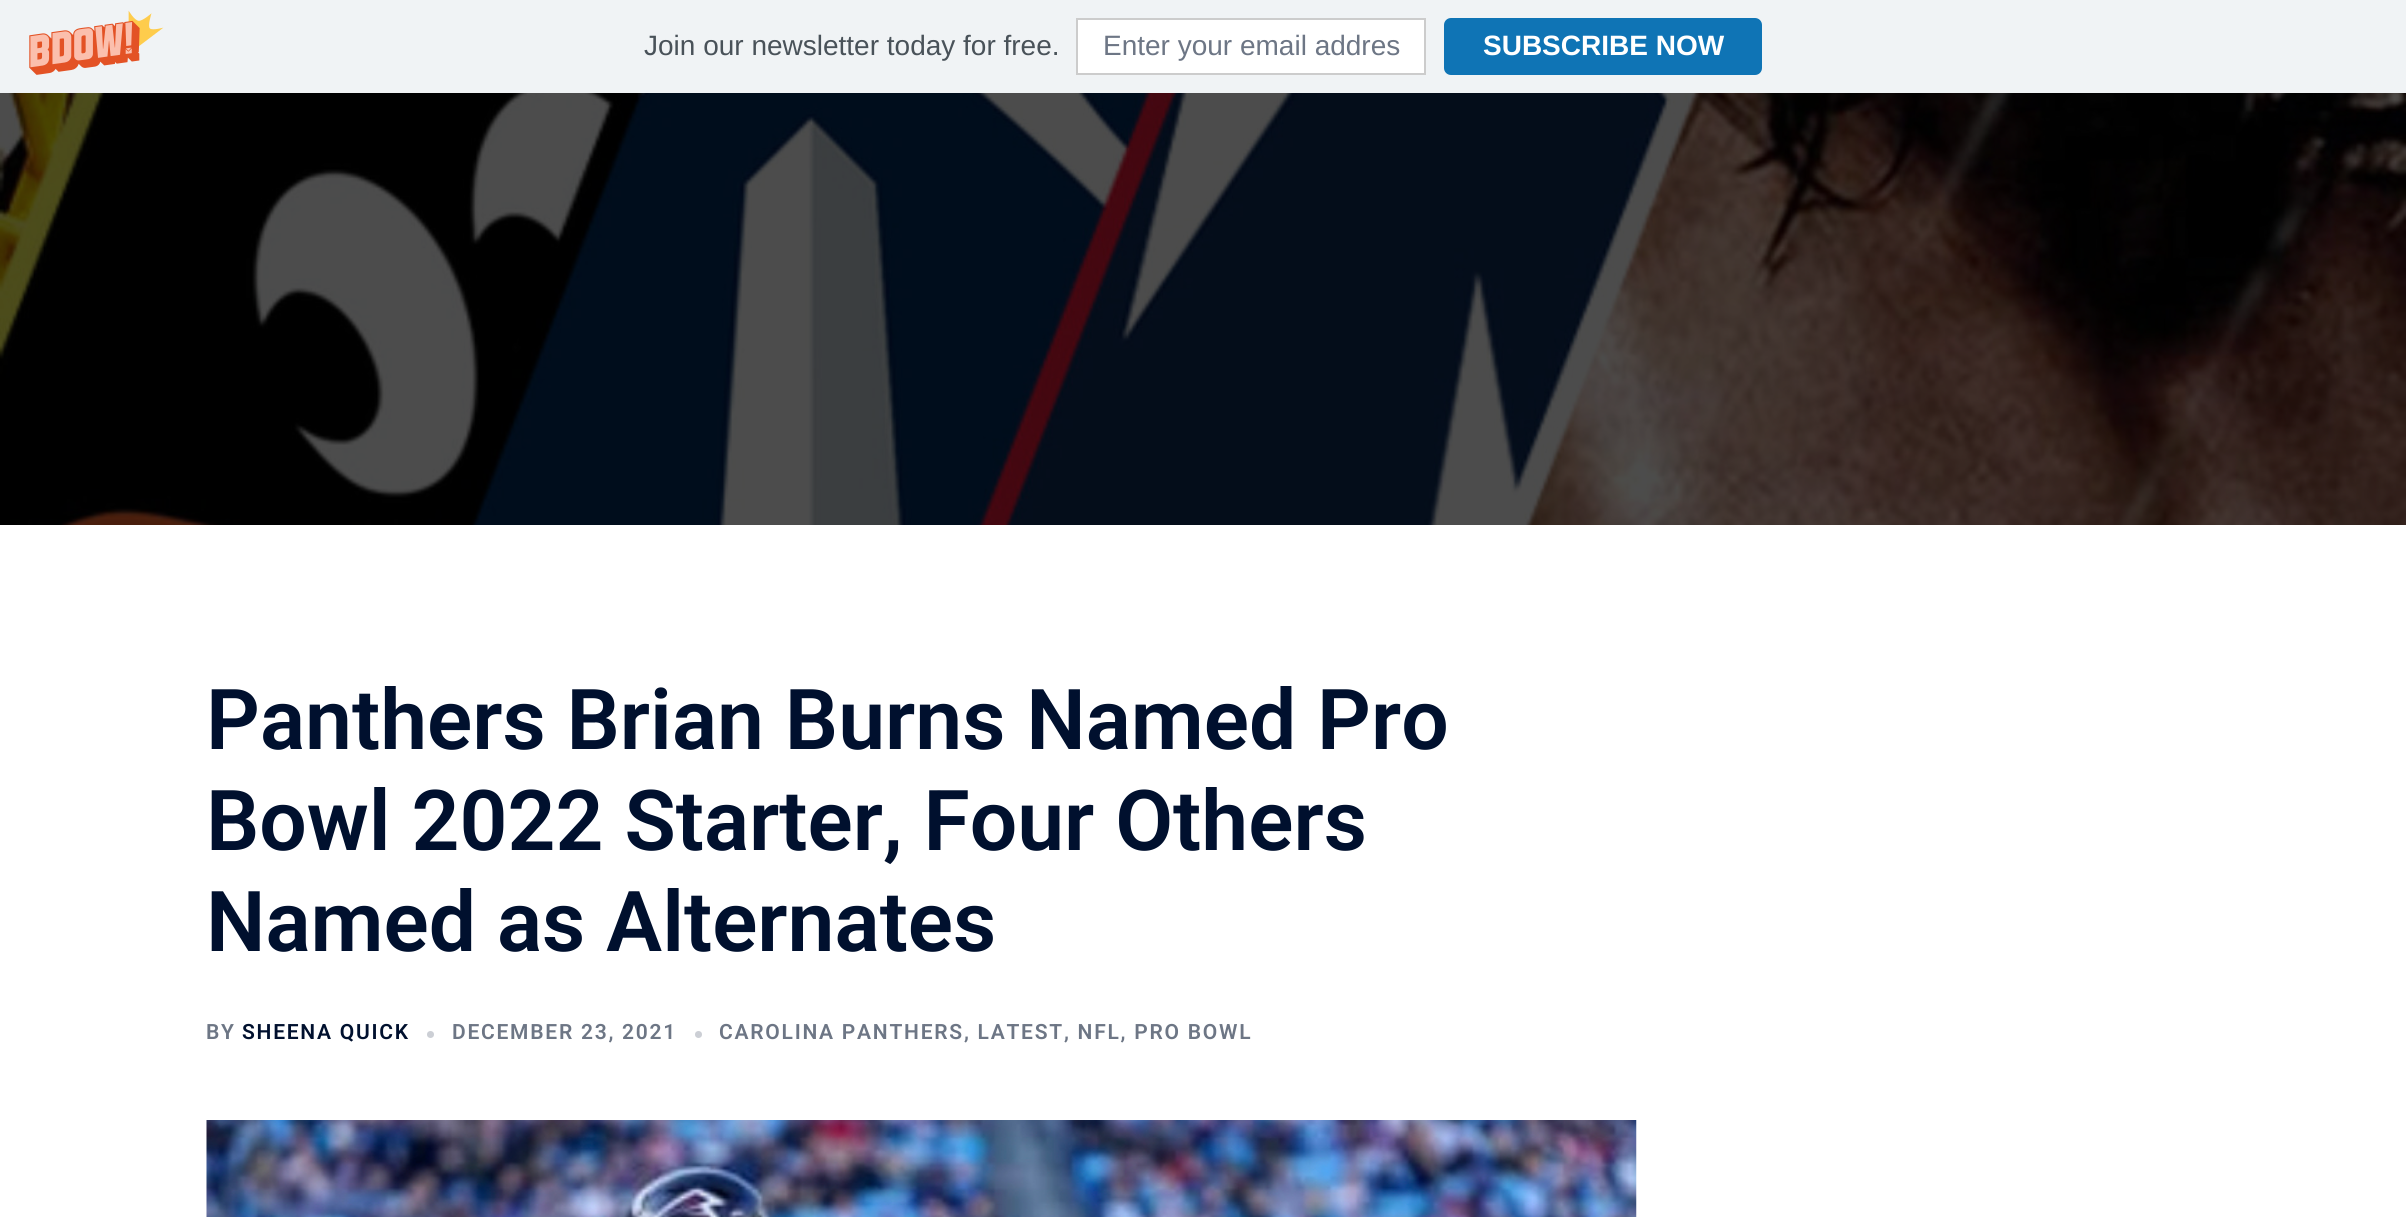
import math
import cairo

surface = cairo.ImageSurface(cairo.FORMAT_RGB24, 2406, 1217)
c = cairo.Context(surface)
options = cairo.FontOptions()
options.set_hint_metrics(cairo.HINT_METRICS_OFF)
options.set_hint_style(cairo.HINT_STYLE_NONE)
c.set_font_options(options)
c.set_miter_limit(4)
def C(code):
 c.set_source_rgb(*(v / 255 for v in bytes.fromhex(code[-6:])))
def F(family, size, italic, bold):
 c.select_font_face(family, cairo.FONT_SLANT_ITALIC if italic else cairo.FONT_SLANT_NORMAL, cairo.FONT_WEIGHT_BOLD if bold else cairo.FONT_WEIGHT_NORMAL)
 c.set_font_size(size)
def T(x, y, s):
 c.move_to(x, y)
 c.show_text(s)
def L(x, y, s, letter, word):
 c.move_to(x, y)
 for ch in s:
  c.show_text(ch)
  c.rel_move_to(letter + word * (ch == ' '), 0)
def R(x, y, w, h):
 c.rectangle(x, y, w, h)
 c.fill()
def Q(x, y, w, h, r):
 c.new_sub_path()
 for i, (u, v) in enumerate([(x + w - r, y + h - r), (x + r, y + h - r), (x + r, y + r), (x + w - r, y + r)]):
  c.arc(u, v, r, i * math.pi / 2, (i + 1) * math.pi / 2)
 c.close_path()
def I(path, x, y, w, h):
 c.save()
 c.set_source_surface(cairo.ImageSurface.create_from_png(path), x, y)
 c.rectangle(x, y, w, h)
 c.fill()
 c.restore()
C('ffffff')
c.paint()
C('f0f3f5')
R(0,0,2406,93)
I('1.png',29,10,135,65)
F('Liberation Sans',28,0,0)
C('495259')
T(644,55,'Join our newsletter today for free.')
C('ffffff')
c.rectangle(1077,19,348,55)
c.fill_preserve()
C('cccccc')
c.stroke()
C('6d7685')
T(1103,55,'Enter your email addres')
C('0f74b5')
Q(1444,18,318,57,7)
c.fill()
F('Liberation Sans',28,0,1)
C('ffffff')
T(1483,55,'SUBSCRIBE NOW')
I('2.png',0,93,2406,432)
F('Roboto SemiBold',84,0,0)
C('00102e')
T(206,749,'Panthers Brian Burns Named Pro')
T(206,850,'Bowl 2022 Starter, Four Others')
T(206,951,'Named as Alternates')
F('Roboto SemiBold',21,0,0)
C('6d7685')
L(206,1039,'BY',1.75,0)
C('00102e')
L(242,1039,'SHEENA QUICK',1.75,0)
C('cccfd5')
c.new_path()
c.arc(430.5,1034.5,3.5,0,2 * math.pi)
c.fill()
C('6d7685')
L(452,1039,'DECEMBER 23, 2021',1.75,0)
C('cccfd5')
c.new_path()
c.arc(698.5,1034.5,3.5,0,2 * math.pi)
c.fill()
C('6d7685')
L(719,1039,'CAROLINA PANTHERS, LATEST, NFL, PRO BOWL',1.75,0)
I('3.png',206,1120,1431,97)
surface.write_to_png('o.png')
